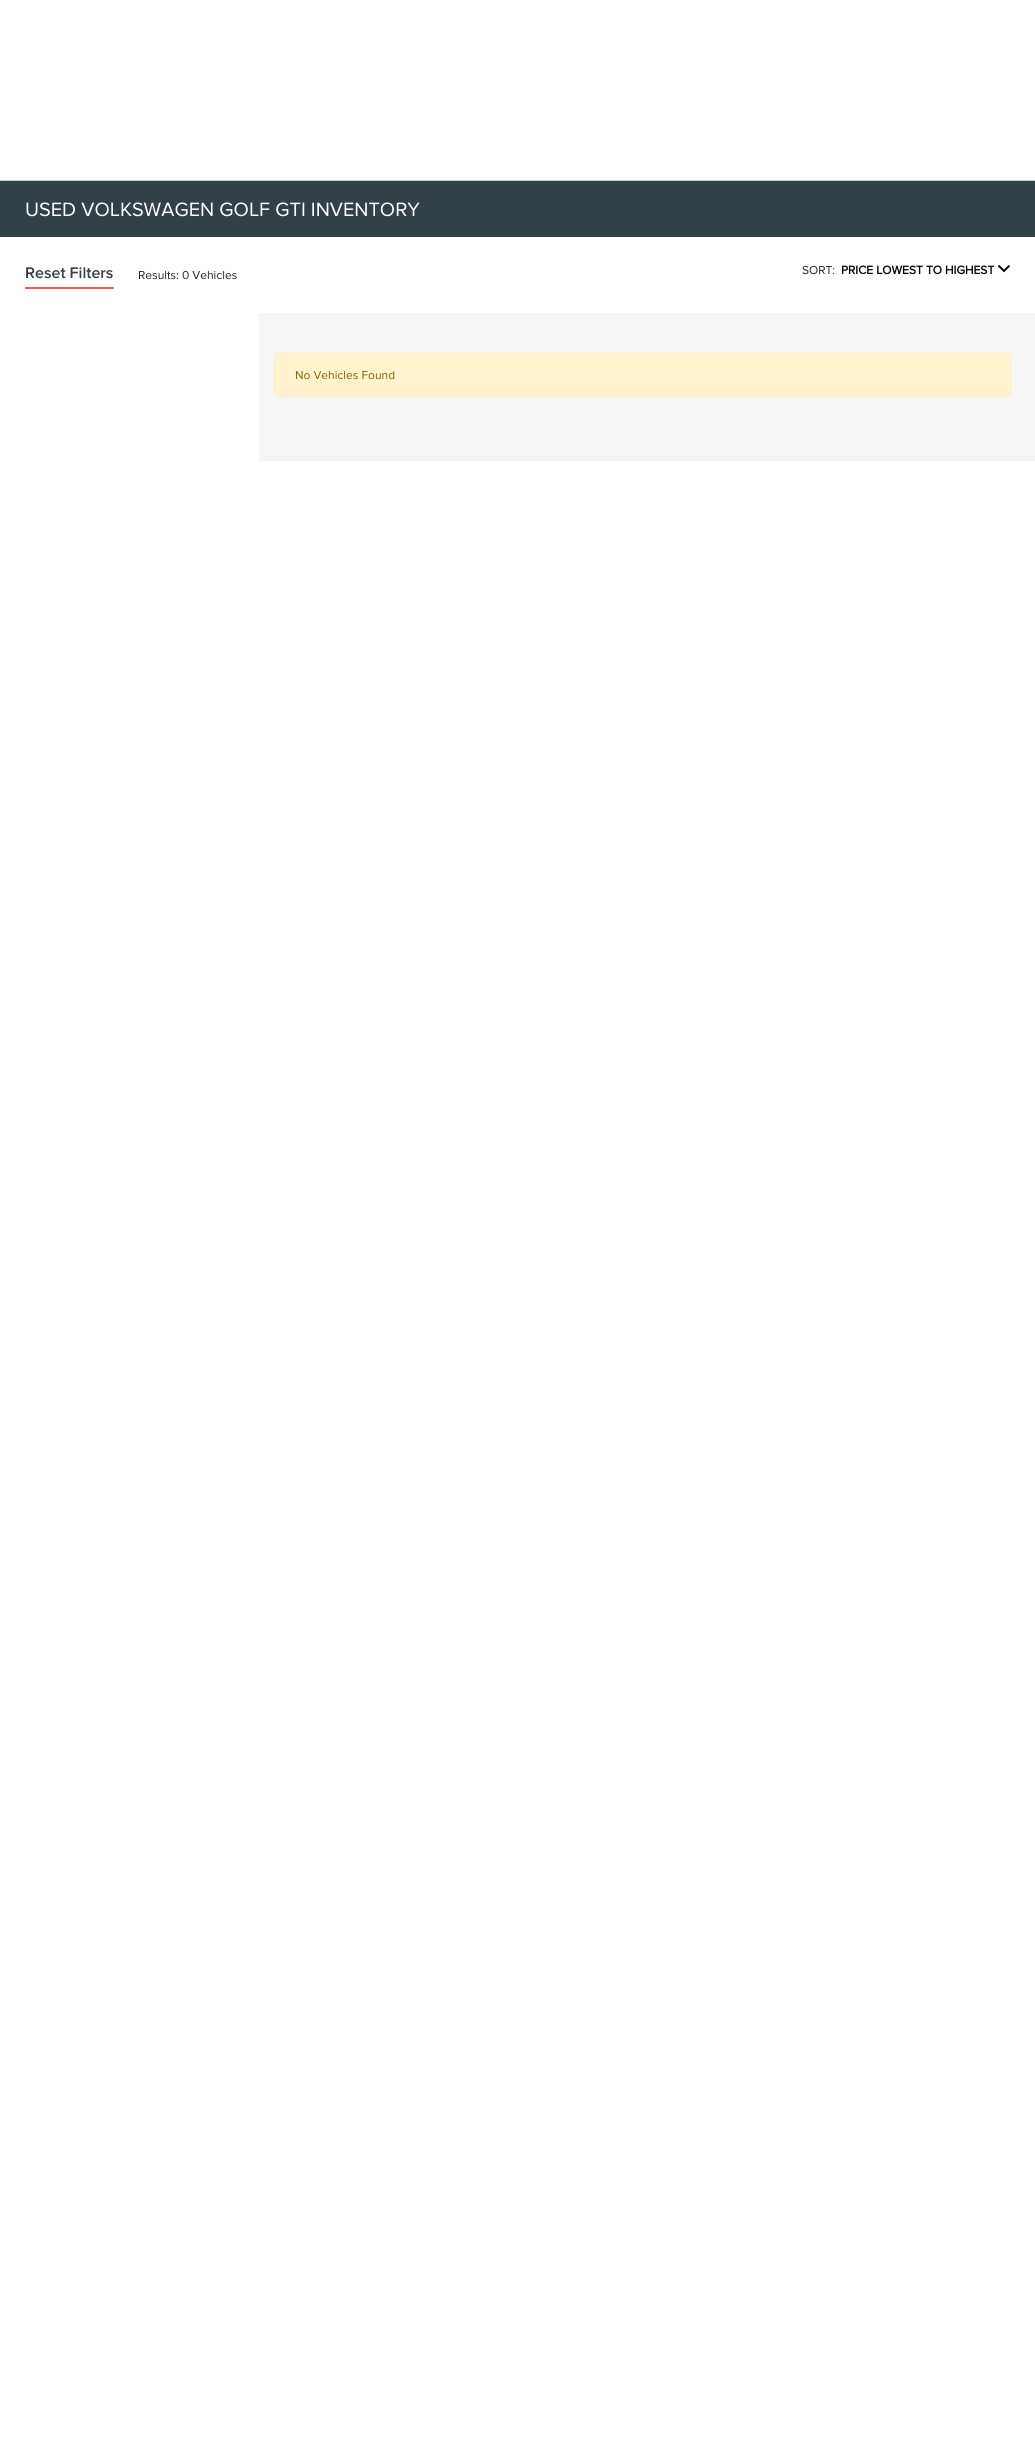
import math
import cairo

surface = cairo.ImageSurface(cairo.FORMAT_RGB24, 1035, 2448)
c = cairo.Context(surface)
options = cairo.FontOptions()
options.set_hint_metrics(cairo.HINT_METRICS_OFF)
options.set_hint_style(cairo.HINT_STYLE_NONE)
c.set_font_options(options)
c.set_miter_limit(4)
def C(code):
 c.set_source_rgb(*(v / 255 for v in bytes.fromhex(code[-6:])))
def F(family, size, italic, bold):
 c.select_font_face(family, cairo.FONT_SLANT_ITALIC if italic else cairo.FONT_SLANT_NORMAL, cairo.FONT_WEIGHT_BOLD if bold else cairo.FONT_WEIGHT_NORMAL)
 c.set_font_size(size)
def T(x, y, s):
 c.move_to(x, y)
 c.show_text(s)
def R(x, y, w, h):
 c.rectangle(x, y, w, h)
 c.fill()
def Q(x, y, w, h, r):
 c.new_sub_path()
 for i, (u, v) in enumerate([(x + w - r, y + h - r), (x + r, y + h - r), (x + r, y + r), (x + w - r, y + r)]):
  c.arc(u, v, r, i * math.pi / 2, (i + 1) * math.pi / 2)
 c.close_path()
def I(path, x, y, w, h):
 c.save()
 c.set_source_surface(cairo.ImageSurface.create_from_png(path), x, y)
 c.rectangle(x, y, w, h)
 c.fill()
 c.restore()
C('ffffff')
c.paint()
C('f5f5f5')
R(259,313,776,148)
C('324047')
R(0,181,1035,56)
C('c6c6c6')
R(0,180,1035,1)
F('Proxima Nova',20,0,0)
C('ffffff')
T(25,216,'USED VOLKSWAGEN GOLF GTI INVENTORY')
C('f26147')
R(25,287,89,2)
F('Proxima Nova SemiBold',16,0,0)
C('324047')
T(25,278,'Reset Filters')
F('Proxima Nova',12,0,0)
C('212529')
T(138,279,'Results: 0 Vehicles')
T(802,274,'SORT:')
F('Proxima Nova',12,0,1)
C('000000')
T(841,274,'PRICE LOWEST TO HIGHEST')
I('1.png',998,265,12,8)
C('fff3cd')
Q(274.5,353.5,736,43,3.5)
c.fill_preserve()
C('ffeeba')
c.set_line_width(1)
c.stroke()
F('Proxima Nova',12,0,0)
C('856404')
T(295,379,'No Vehicles Found')
surface.write_to_png('o.png')
